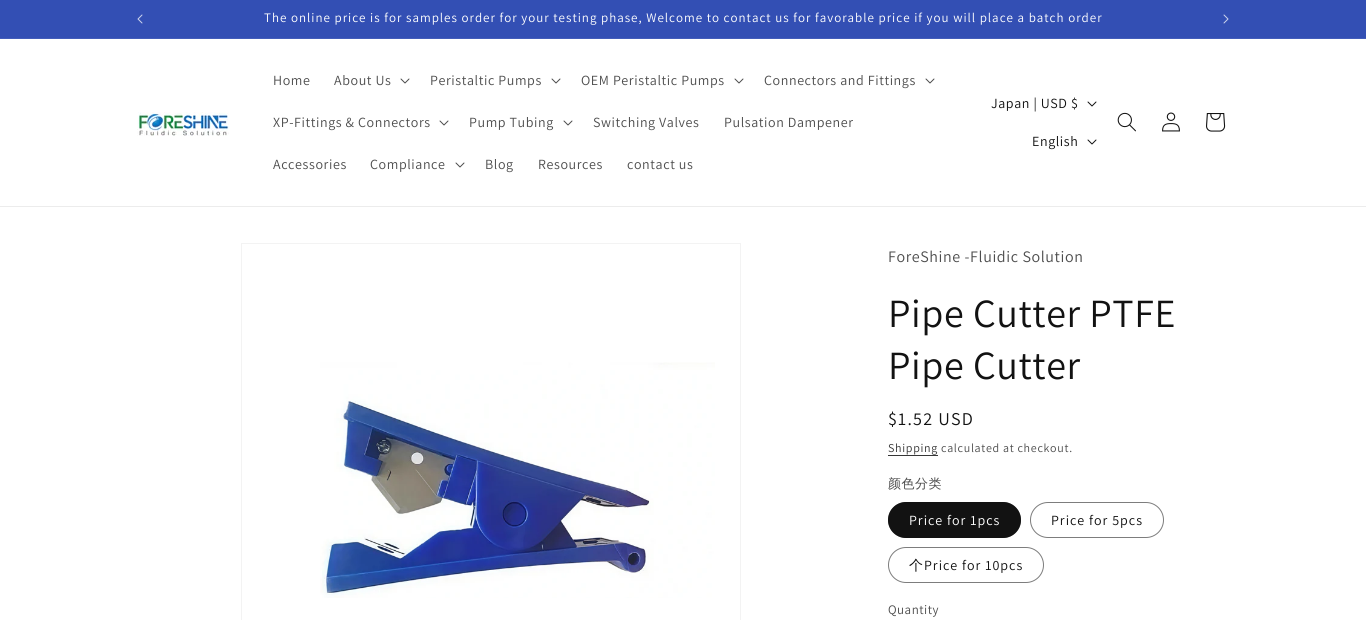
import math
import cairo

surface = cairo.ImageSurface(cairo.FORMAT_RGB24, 1366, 620)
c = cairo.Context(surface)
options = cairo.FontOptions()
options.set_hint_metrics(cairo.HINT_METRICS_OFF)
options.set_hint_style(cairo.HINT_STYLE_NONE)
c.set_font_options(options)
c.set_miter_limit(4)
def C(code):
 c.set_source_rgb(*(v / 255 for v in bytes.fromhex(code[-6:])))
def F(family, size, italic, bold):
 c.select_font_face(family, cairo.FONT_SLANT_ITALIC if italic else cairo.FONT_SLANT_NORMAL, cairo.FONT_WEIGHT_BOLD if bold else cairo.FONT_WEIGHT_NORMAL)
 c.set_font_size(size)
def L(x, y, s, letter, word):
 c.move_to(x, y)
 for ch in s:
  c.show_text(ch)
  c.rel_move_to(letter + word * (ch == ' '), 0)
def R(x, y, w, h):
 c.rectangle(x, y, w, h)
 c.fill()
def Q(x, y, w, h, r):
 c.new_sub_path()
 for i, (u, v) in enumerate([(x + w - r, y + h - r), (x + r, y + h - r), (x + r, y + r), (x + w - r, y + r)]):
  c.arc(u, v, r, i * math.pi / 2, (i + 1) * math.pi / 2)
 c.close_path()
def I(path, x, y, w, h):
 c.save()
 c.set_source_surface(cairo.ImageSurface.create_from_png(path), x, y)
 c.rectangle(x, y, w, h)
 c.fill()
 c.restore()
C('ffffff')
c.paint()
C('334fb4')
R(0,0,1366,38)
C('435dba')
R(0,38,1366,1)
I('1.png',137,14,6,10)
F('Assistant',13,0,0)
C('ffffff')
L(264,22,'The online price is for samples order for your testing phase, Welcome to contact us for favorable price if you will place a batch order',1,0)
I('2.png',1223,14,6,10)
C('ececec')
R(0,206,1366,1)
I('3.png',137,112,92,24)
F('Assistant',14,0,0)
C('4d4d4d')
L(273,85,'Home',.6,0)
L(334,85,'About Us',.6,0)
I('4.png',400,78,10,6)
L(430,85,'Peristaltic Pumps',.6,0)
I('4.png',551,78,10,6)
L(581,85,'OEM Peristaltic Pumps',.6,0)
I('4.png',734,78,10,6)
L(764,85,'Connectors and Fittings',.6,0)
I('4.png',925,78,10,6)
L(273,127,'XP-Fittings & Connectors',.6,0)
I('4.png',439,120,10,6)
L(469,127,'Pump Tubing',.6,0)
I('4.png',563,120,10,6)
L(593,127,'Switching Valves',.6,0)
L(724,127,'Pulsation Dampener',.6,0)
L(273,169,'Accessories',.6,0)
L(370,169,'Compliance',.6,0)
I('4.png',455,162,10,6)
L(485,169,'Blog',.6,0)
L(538,169,'Resources',.6,0)
L(627,169,'contact us',.6,0)
C('121212')
L(991,108,'Japan | USD $',.6,0)
I('5.png',1087,101,10,6)
L(1032,146,'English',.6,0)
I('5.png',1087,139,10,6)
I('6.png',1117,112,19,20)
I('7.png',1162,112,18,20)
I('8.png',1206,113,20,19)
c.rectangle(241.5,243.5,499,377)
C('f3f3f3')
c.set_line_width(1)
c.stroke()
I('9.png',320,362,395,236)
F('Assistant',16,0,0)
C('4d4d4d')
L(888,262,'ForeShine -Fluidic Solution',.6,0)
F('Assistant',40,0,0)
C('121212')
L(888,327,'Pipe Cutter PTFE',.6,0)
L(888,379,'Pipe Cutter',.6,0)
F('Assistant',18,0,0)
L(888,425,'$1.52 USD',1.25,0)
F('Assistant',12,0,0)
C('363636')
L(888,452,'Shipping',.7,0)
R(888,455,50,1)
C('4d4d4d')
L(941,452,'calculated at checkout.',.7,0)
F('WenQuanYi Zen Hei Medium',13,0,0)
L(888,488,'颜色分类',.5,0)
C('121212')
Q(888,502,133,36,18)
c.fill()
Q(888.5,502.5,132,35,17.5)
c.set_source_rgba(0.071,0.071,0.071,0.55)
c.stroke()
F('Assistant',14,0,0)
C('ffffff')
L(909,525,'Price for 1pcs',1,0)
Q(1030.5,502.5,133,35,17.5)
C('7d7d7d')
c.stroke()
C('121212')
L(1051,525,'Price for 5pcs',1,0)
Q(888.5,547.5,155,35,17.5)
C('7d7d7d')
c.stroke()
F('WenQuanYi Zen Hei Medium',14,0,0)
C('121212')
L(909,570,'个',1,0)
F('Assistant',14,0,0)
L(924,570,'Price for 10pcs',1,0)
F('Assistant',13,0,0)
C('4d4d4d')
L(888,614,'Quantity',.5,0)
surface.write_to_png('o.png')
